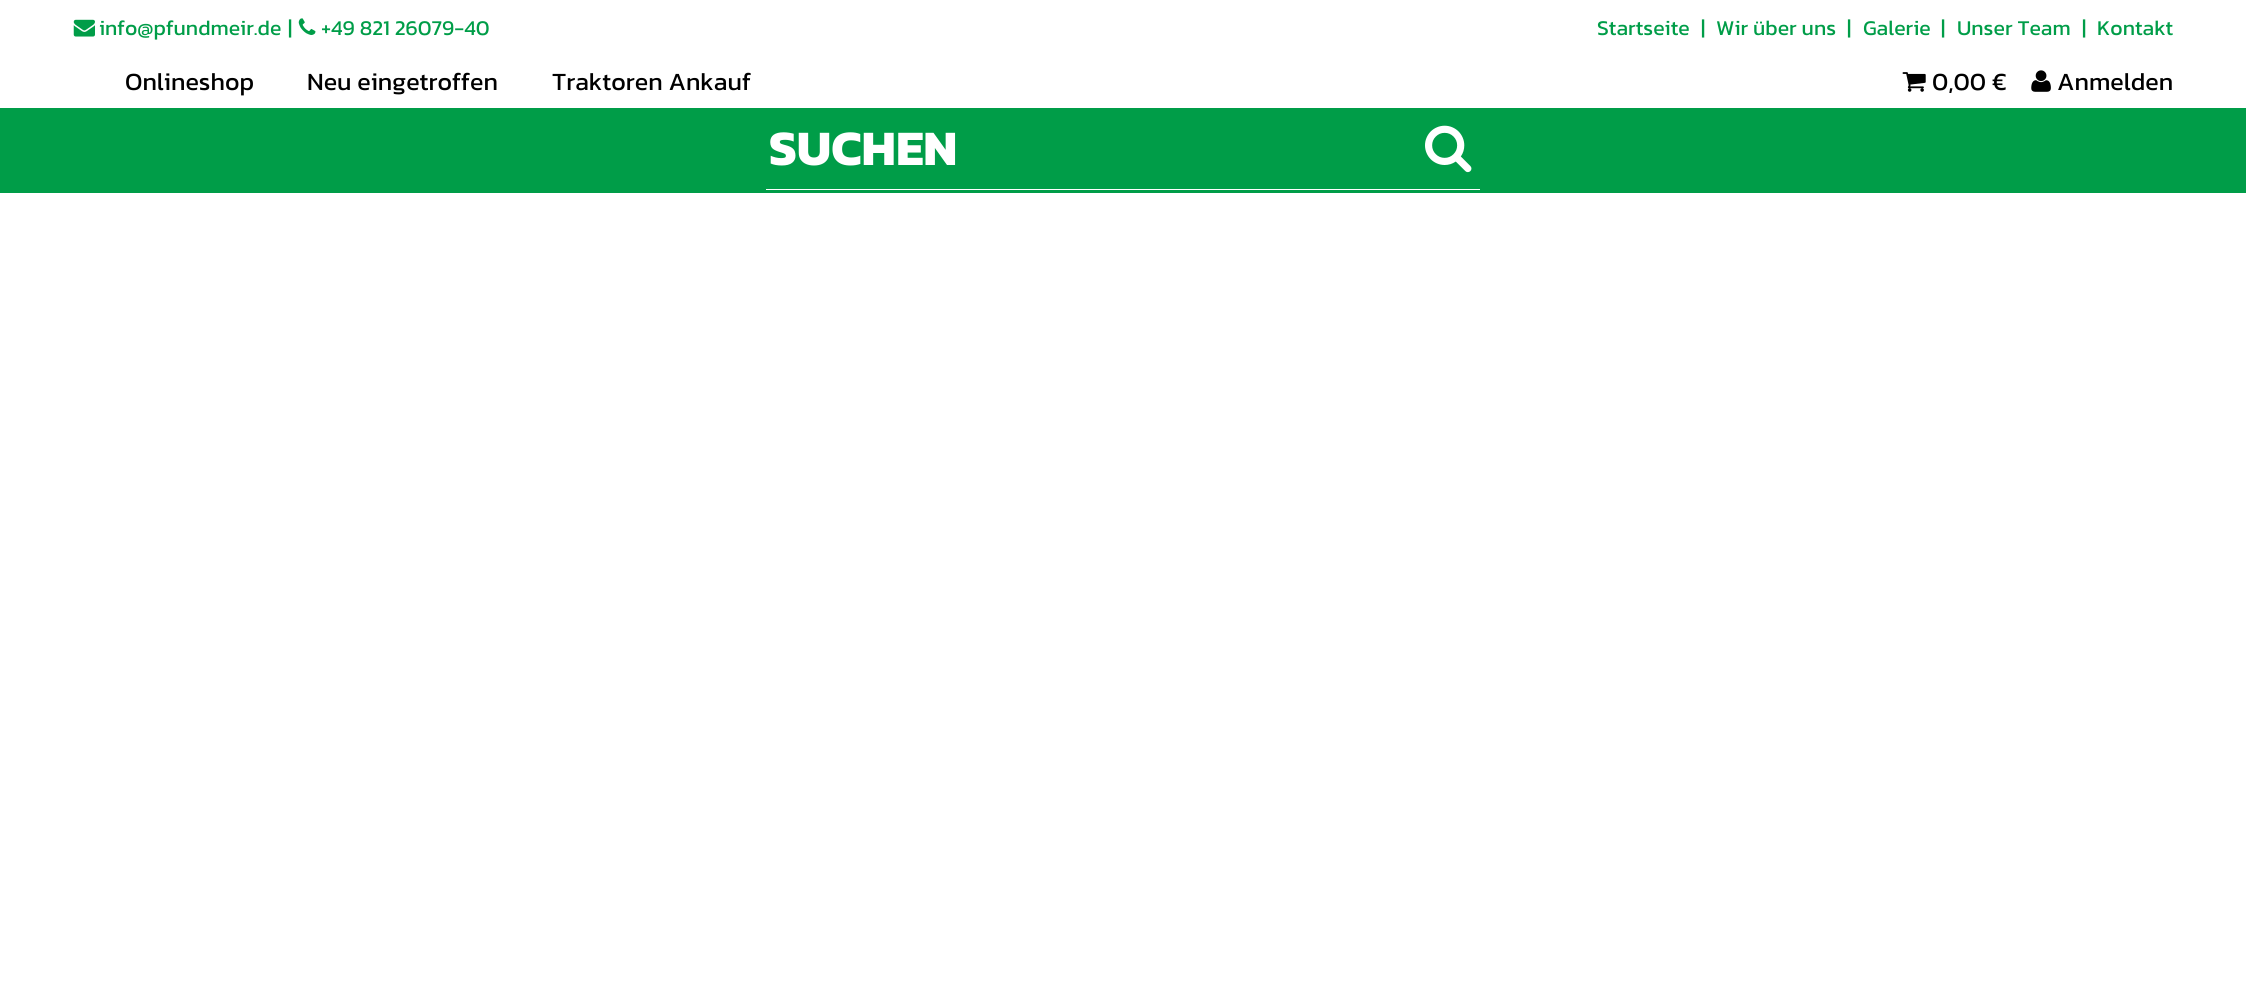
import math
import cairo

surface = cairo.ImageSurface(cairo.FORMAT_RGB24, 2246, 1003)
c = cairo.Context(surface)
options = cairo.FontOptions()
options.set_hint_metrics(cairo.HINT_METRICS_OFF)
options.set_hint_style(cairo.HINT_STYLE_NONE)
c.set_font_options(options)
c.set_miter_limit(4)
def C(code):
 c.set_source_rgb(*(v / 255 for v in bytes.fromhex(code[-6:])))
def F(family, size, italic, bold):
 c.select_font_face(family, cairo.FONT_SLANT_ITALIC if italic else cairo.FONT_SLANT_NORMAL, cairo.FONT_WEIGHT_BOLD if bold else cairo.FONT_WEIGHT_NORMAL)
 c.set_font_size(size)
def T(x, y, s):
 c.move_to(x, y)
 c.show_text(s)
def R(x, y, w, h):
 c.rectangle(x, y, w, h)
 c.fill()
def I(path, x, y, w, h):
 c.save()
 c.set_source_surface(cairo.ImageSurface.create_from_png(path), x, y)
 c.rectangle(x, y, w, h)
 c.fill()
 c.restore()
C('ffffff')
c.paint()
I('1.png',73,19,22,18)
F('Kanit',21.25,0,0)
C('009d48')
T(99,35,'info@pfundmeir.de')
T(288,35,'|')
I('2.png',298,18,18,17)
T(321,35,'+49 821 26079-40')
T(1597,35,'Startseite')
T(1701,35,'|')
T(1716,35,'Wir über uns')
T(1847,35,'|')
T(1863,35,'Galerie')
T(1941,35,'|')
T(1957,35,'Unser Team')
T(2082,35,'|')
T(2097,35,'Kontakt')
F('Kanit',25,0,0)
C('000000')
T(125,90,'Onlineshop')
T(307,90,'Neu eingetroffen')
T(552,90,'Traktoren Ankauf')
I('3.png',1902,72,24,20)
T(1932,90,'0,00 €')
I('4.png',2031,70,20,22)
T(2057,90,'Anmelden')
C('009d48')
R(0,108,2246,85)
C('ffffff')
R(766,189,714,1)
F('Kanit',50,0,1)
T(769,165,'SUCHEN')
I('5.png',1425,125,47,48)
surface.write_to_png('o.png')
